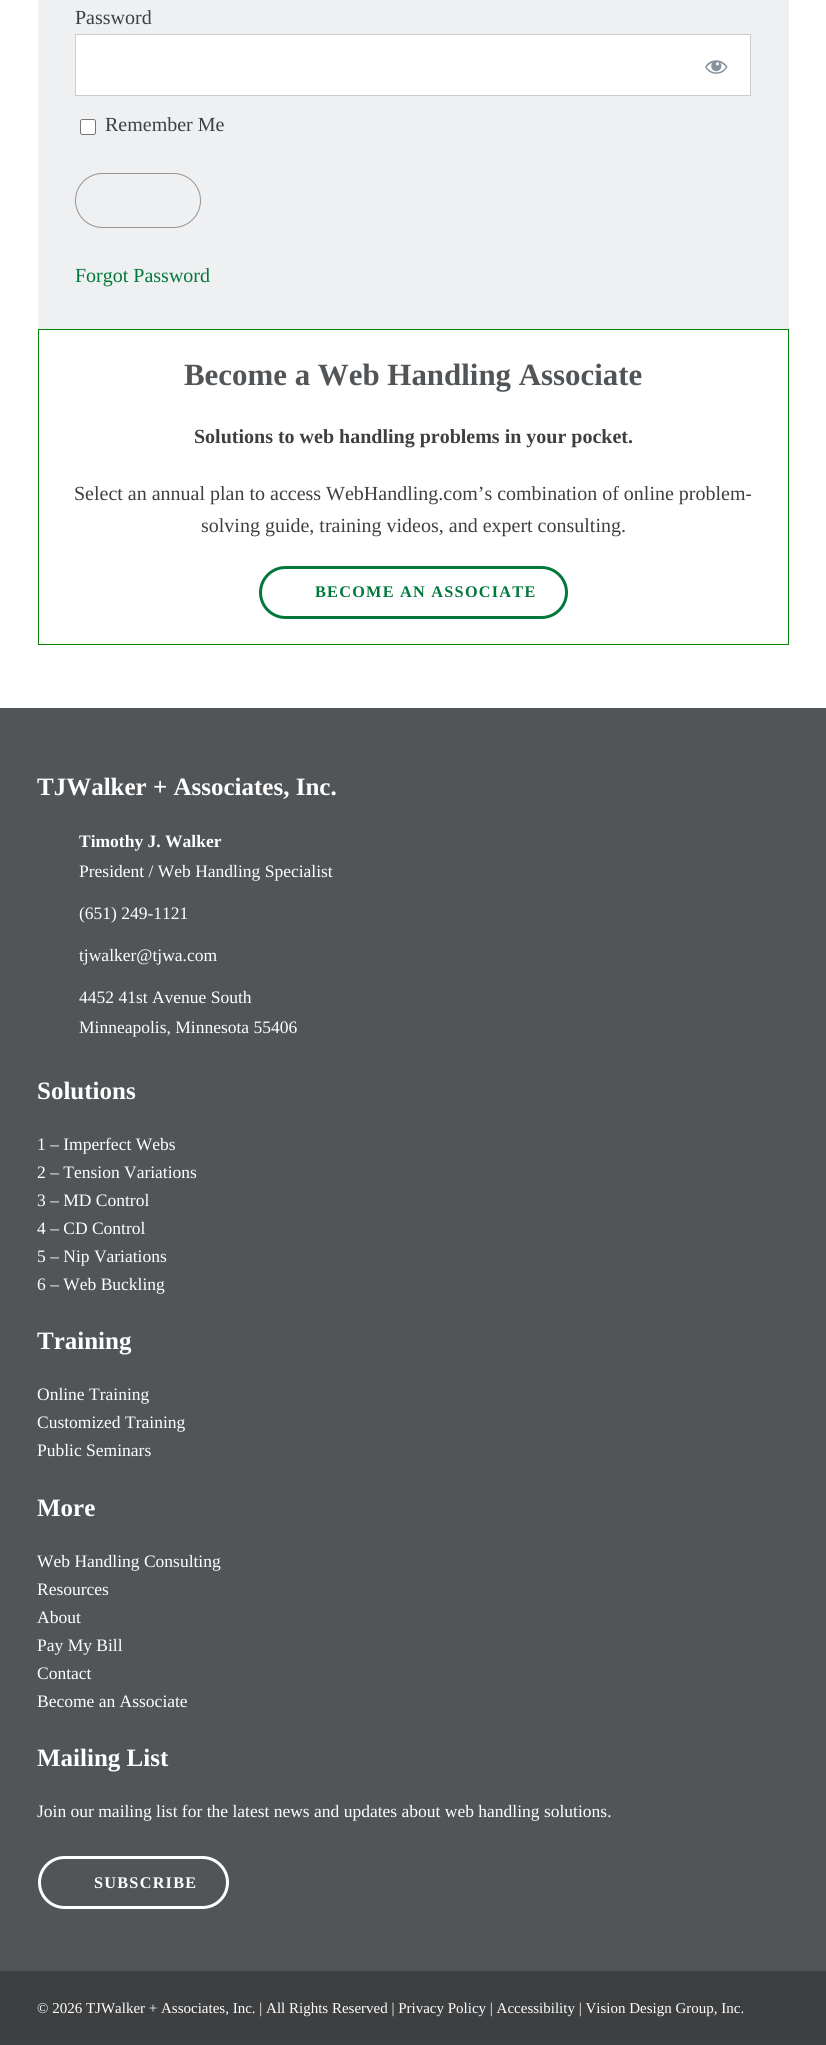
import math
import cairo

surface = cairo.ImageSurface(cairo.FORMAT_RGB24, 826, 2045)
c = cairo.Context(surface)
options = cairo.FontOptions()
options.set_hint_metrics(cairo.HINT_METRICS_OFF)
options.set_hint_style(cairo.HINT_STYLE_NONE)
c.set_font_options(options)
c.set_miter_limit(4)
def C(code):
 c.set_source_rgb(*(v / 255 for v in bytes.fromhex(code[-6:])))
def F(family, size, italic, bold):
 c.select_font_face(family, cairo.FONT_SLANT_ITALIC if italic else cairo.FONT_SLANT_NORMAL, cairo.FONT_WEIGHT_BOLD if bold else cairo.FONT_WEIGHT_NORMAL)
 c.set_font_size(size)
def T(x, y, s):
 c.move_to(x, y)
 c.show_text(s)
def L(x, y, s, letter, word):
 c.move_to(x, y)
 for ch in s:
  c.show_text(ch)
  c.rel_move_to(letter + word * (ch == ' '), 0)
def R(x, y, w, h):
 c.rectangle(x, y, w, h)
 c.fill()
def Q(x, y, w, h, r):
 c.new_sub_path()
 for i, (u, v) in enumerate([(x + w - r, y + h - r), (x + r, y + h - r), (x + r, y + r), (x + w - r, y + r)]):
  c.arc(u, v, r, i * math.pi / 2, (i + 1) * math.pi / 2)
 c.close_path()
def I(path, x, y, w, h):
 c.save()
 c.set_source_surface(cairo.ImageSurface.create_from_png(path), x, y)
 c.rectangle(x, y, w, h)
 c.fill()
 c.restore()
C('ffffff')
c.paint()
C('eff0f2')
R(38,0,751,329)
F('Liberation Serif',20,0,0)
C('3d3f41')
T(75,24,'Password')
C('ffffff')
c.rectangle(75.5,34.5,675,61)
c.fill_preserve()
C('cccccc')
c.set_line_width(1)
c.stroke()
I('1.png',705,60,23,14)
C('ffffff')
Q(80.5,119.5,15,15,2)
c.fill_preserve()
C('767676')
c.stroke()
C('3d3f41')
T(105,131,'Remember Me')
Q(75.5,173.5,125,54,27)
C('949494')
c.stroke()
C('01783b')
T(75,282,'Forgot Password')
c.rectangle(38.5,329.5,750,315)
C('058409')
c.stroke()
F('Liberation Serif',30.9,0,1)
C('525558')
T(184,385,'Become a Web Handling Associate')
F('Liberation Serif',20,0,1)
C('3d3f41')
T(194,443,'Solutions to web handling problems in your pocket.')
F('Liberation Serif',20,0,0)
T(74,500,'Select an annual plan to access WebHandling.com’s combination of online problem-')
T(201,532,'solving guide, training videos, and expert consulting.')
Q(260.5,567.5,306,50,25)
C('01783b')
c.set_line_width(3)
c.stroke()
F('Liberation Serif',16.25,0,1)
L(315,597,'BECOME AN ASSOCIATE',1.25,0)
C('525558')
R(0,708,826,1263)
F('Liberation Serif',25,0,1)
C('ffffff')
T(37,795,'TJWalker + Associates, Inc.')
F('Liberation Serif',17.5,0,1)
T(79,847,'Timothy J. Walker')
F('Liberation Serif',17.5,0,0)
T(79,877,'President / Web Handling Specialist')
T(79,919,'(651) 249-1121')
T(79,961,'tjwalker@tjwa.com')
T(79,1003,'4452 41st Avenue South')
T(79,1033,'Minneapolis, Minnesota 55406')
F('Liberation Serif',25,0,1)
T(37,1099,'Solutions')
F('Liberation Serif',17.5,0,0)
T(37,1150,'1 – Imperfect Webs')
T(37,1178,'2 – Tension Variations')
T(37,1206,'3 – MD Control')
T(37,1234,'4 – CD Control')
T(37,1262,'5 – Nip Variations')
T(37,1290,'6 – Web Buckling')
F('Liberation Serif',25,0,1)
T(37,1349,'Training')
F('Liberation Serif',17.5,0,0)
T(37,1400,'Online Training')
T(37,1428,'Customized Training')
T(37,1456,'Public Seminars')
F('Liberation Serif',25,0,1)
T(37,1516,'More')
F('Liberation Serif',17.5,0,0)
T(37,1567,'Web Handling Consulting')
T(37,1595,'Resources')
T(37,1623,'About')
T(37,1651,'Pay My Bill')
T(37,1679,'Contact')
T(37,1707,'Become an Associate')
F('Liberation Serif',25,0,1)
T(37,1766,'Mailing List')
F('Liberation Serif',17.5,0,0)
T(37,1817,'Join our mailing list for the latest news and updates about web handling solutions.')
Q(39.5,1857.5,188,50,25)
c.stroke()
F('Liberation Serif',16.25,0,1)
L(94,1888,'SUBSCRIBE',1.25,0)
C('3d3f41')
R(0,1971,826,74)
F('Liberation Serif',15,0,0)
C('ffffff')
T(37,2013,'© 2026 TJWalker + Associates, Inc. | All Rights Reserved | Privacy Policy | Accessibility | Vision Design Group, Inc.')
surface.write_to_png('o.png')
